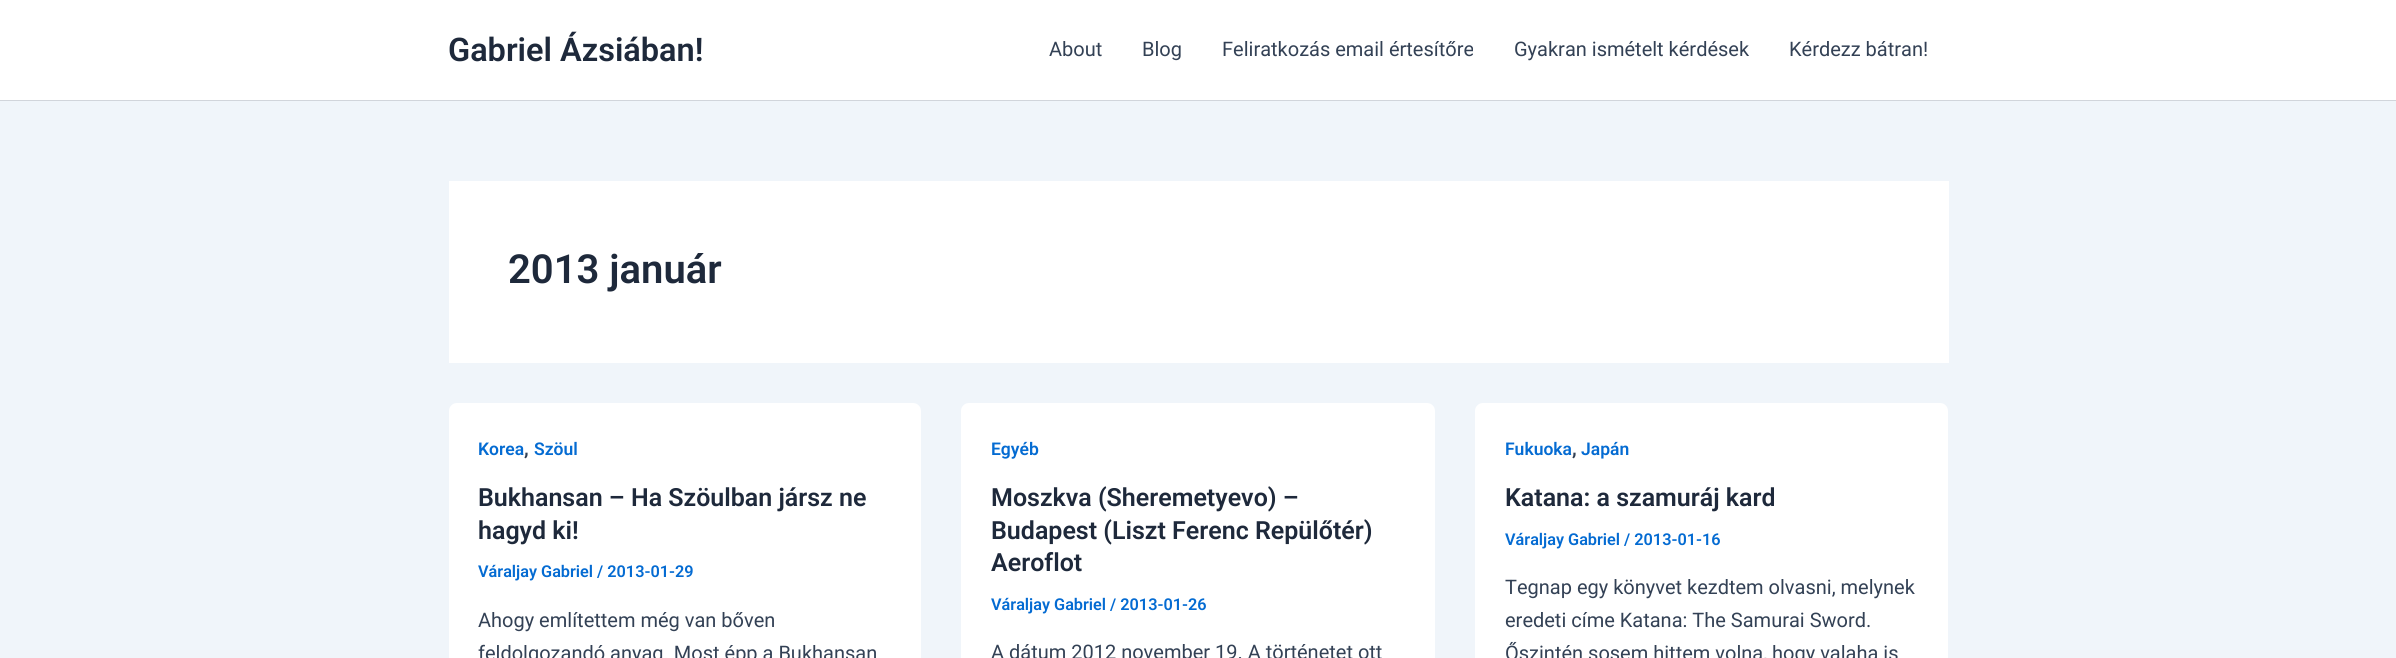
import math
import cairo

surface = cairo.ImageSurface(cairo.FORMAT_RGB24, 2396, 658)
c = cairo.Context(surface)
options = cairo.FontOptions()
options.set_hint_metrics(cairo.HINT_METRICS_OFF)
options.set_hint_style(cairo.HINT_STYLE_NONE)
c.set_font_options(options)
c.set_miter_limit(4)
def C(code):
 c.set_source_rgb(*(v / 255 for v in bytes.fromhex(code[-6:])))
def F(family, size, italic, bold):
 c.select_font_face(family, cairo.FONT_SLANT_ITALIC if italic else cairo.FONT_SLANT_NORMAL, cairo.FONT_WEIGHT_BOLD if bold else cairo.FONT_WEIGHT_NORMAL)
 c.set_font_size(size)
def T(x, y, s):
 c.move_to(x, y)
 c.show_text(s)
def R(x, y, w, h):
 c.rectangle(x, y, w, h)
 c.fill()
def Q(x, y, w, h, r):
 c.new_sub_path()
 for i, (u, v) in enumerate([(x + w - r, y + h - r), (x + r, y + h - r), (x + r, y + r), (x + w - r, y + r)]):
  c.arc(u, v, r, i * math.pi / 2, (i + 1) * math.pi / 2)
 c.close_path()
C('f0f5fa')
c.paint()
C('ffffff')
R(0,0,2396,100)
C('d1d5db')
R(0,100,2396,1)
F('Roboto SemiBold',32.5,0,0)
C('1e293b')
T(448,61,'Gabriel Ázsiában!')
F('Roboto',20,0,0)
C('334155')
T(1049,56,'About')
T(1142,56,'Blog')
T(1222,56,'Feliratkozás email értesítőre')
T(1514,56,'Gyakran ismételt kérdések')
T(1789,56,'Kérdezz bátran!')
C('ffffff')
R(449,181,1500,182)
F('Roboto SemiBold',40,0,0)
C('1e293b')
T(508,283,'2013 január')
C('ffffff')
Q(449,403,472,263,8)
c.fill()
F('Roboto SemiBold',17.5,0,0)
C('046bd2')
T(478,455,'Korea')
F('Roboto SemiBold',20,0,0)
C('334155')
T(524,455,',')
F('Roboto SemiBold',17.5,0,0)
C('046bd2')
T(534,455,'Szöul')
F('Roboto SemiBold',25,0,0)
C('1e293b')
T(478,506,'Bukhansan – Ha Szöulban jársz ne')
T(478,539,'hagyd ki!')
F('Roboto SemiBold',16.25,0,0)
C('046bd2')
T(478,577,'Váraljay Gabriel / 2013-01-29')
F('Roboto',20,0,0)
C('334155')
T(478,627,'Ahogy említettem még van bőven')
T(478,660,'feldolgozandó anyag. Most épp a Bukhansan')
C('ffffff')
Q(961,403,474,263,8)
c.fill()
F('Roboto SemiBold',17.5,0,0)
C('046bd2')
T(991,455,'Egyéb')
F('Roboto SemiBold',25,0,0)
C('1e293b')
T(991,506,'Moszkva (Sheremetyevo) –')
T(991,539,'Budapest (Liszt Ferenc Repülőtér)')
T(991,571,'Aeroflot')
F('Roboto SemiBold',16.25,0,0)
C('046bd2')
T(991,610,'Váraljay Gabriel / 2013-01-26')
F('Roboto',20,0,0)
C('334155')
T(991,659,'A dátum 2012 november 19. A történetet ott')
C('ffffff')
Q(1475,403,473,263,8)
c.fill()
F('Roboto SemiBold',17.5,0,0)
C('046bd2')
T(1505,455,'Fukuoka')
F('Roboto SemiBold',20,0,0)
C('334155')
T(1572,455,',')
F('Roboto SemiBold',17.5,0,0)
C('046bd2')
T(1581,455,'Japán')
F('Roboto SemiBold',25,0,0)
C('1e293b')
T(1505,506,'Katana: a szamuráj kard')
F('Roboto SemiBold',16.25,0,0)
C('046bd2')
T(1505,545,'Váraljay Gabriel / 2013-01-16')
F('Roboto',20,0,0)
C('334155')
T(1505,594,'Tegnap egy könyvet kezdtem olvasni, melynek')
T(1505,627,'eredeti címe Katana: The Samurai Sword.')
T(1505,660,'Őszintén sosem hittem volna, hogy valaha is')
surface.write_to_png('o.png')
